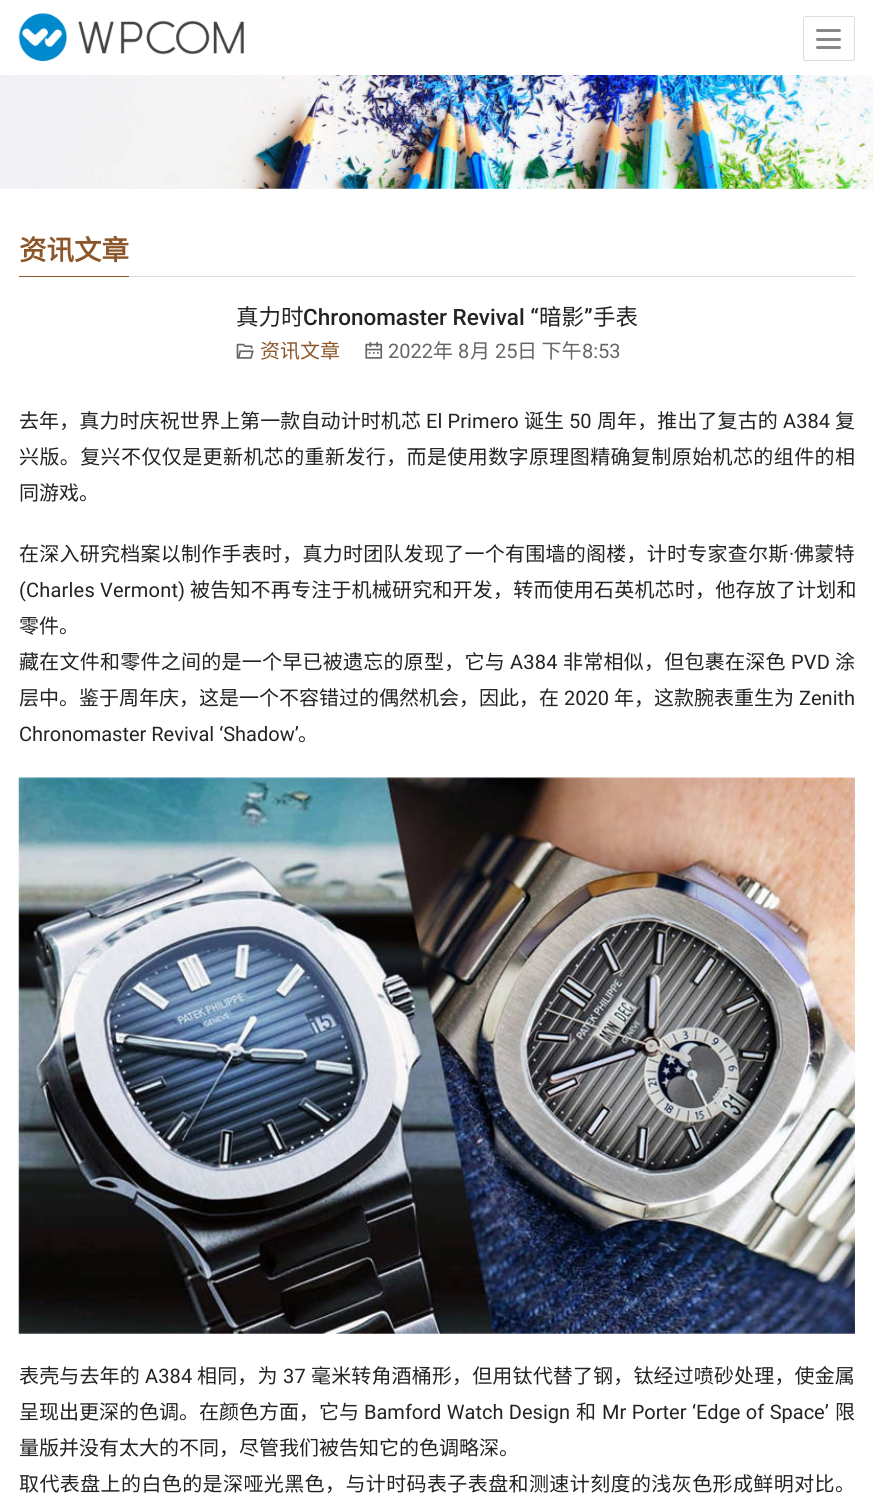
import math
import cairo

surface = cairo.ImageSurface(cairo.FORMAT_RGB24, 873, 1503)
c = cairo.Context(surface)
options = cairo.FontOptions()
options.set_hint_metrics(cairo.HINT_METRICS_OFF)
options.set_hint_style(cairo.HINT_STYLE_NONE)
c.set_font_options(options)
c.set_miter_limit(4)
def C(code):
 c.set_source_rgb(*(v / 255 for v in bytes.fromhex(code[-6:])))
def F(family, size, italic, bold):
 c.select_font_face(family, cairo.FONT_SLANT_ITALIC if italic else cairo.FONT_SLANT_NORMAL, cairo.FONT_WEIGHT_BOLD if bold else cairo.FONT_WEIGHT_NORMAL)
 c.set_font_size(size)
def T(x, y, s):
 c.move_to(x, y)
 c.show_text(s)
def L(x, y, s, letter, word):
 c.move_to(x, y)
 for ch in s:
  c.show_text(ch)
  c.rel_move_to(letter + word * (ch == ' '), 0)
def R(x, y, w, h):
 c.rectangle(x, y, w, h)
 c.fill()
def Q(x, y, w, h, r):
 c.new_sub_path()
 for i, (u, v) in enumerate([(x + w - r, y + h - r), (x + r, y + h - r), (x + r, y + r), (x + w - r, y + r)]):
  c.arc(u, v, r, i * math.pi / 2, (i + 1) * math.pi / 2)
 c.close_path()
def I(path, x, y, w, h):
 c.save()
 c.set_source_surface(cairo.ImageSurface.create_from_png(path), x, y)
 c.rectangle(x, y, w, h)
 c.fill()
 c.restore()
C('ffffff')
c.paint()
I('1.png',18,13,226,49)
Q(803.5,16.5,51,44,2)
C('dddddd')
c.set_line_width(1)
c.stroke()
C('888888')
Q(816,29,25,3,1.5)
c.fill()
Q(816,38,25,3,1.5)
c.fill()
Q(816,46,25,3,1.5)
c.fill()
I('2.png',0,75,873,114)
C('dddddd')
R(129,276,726,1)
C('8b572a')
R(19,276,110,1)
F('Noto Sans CJK SC',27.5,0,1)
T(19,260,'资讯文章')
F('Noto Sans CJK SC',22.5,0,0)
C('232323')
T(236,325,'真力时')
F('Roboto Medium',22.5,0,0)
T(303,325,'Chronomaster Revival “')
F('Noto Sans CJK SC',22.5,0,0)
T(539,325,'暗影')
F('Roboto Medium',22.5,0,0)
T(584,325,'”')
F('Noto Sans CJK SC',22.5,0,0)
T(593,325,'手表')
I('3.png',236,343,18,16)
F('Noto Sans CJK SC',20,0,0)
C('8b572a')
T(260,358,'资讯文章')
I('4.png',365,342,18,17)
F('Roboto',20,0,0)
C('666666')
T(388,358,'2022')
F('Noto Sans CJK SC',20,0,0)
T(433,358,'年')
F('Roboto',20,0,0)
T(458,358,'8')
F('Noto Sans CJK SC',20,0,0)
T(470,358,'月')
F('Roboto',20,0,0)
T(495,358,'25')
F('Noto Sans CJK SC',20,0,0)
T(517,358,'日 下午')
F('Roboto',20,0,0)
T(582,358,'8:53')
F('Noto Sans CJK SC',20,0,0)
C('232323')
L(19,428,'去年，真力时庆祝世界上第一款自动计时机芯',.1,0)
F('Roboto',20,0,0)
L(426,428,'El Primero',.1,0)
F('Noto Sans CJK SC',20,0,0)
L(524,428,'诞生',.1,0)
F('Roboto',20,0,0)
L(569,428,'50',.1,0)
F('Noto Sans CJK SC',20,0,0)
L(597,428,'周年，推出了复古的',.1,0)
F('Roboto',20,0,0)
L(783,428,'A384',.1,0)
F('Noto Sans CJK SC',20,0,0)
L(835,428,'复',.1,0)
L(19,464,'兴版。复兴不仅仅是更新机芯的重新发行，而是使用数字原理图精确复制原始机芯的组件的相',.4,0)
T(19,500,'同游戏。')
L(19,561,'在深入研究档案以制作手表时，真力时团队发现了一个有围墙的阁楼，计时专家查尔斯',.25,0)
F('Roboto',20,0,0)
L(789,561,'·',.25,0)
F('Noto Sans CJK SC',20,0,0)
L(794,561,'佛蒙特',.25,0)
F('Roboto',20,0,0)
L(19,597,'(Charles Vermont)',.2,0)
F('Noto Sans CJK SC',20,0,0)
L(190,597,'被告知不再专注于机械研究和开发，转而使用石英机芯时，他存放了计划和',.2,0)
T(19,633,'零件。')
L(19,669,'藏在文件和零件之间的是一个早已被遗忘的原型，它与',.25,0)
F('Roboto',20,0,0)
L(510,669,'A384',.25,0)
F('Noto Sans CJK SC',20,0,0)
L(563,669,'非常相似，但包裹在深色',.25,0)
F('Roboto',20,0,0)
L(791,669,'PVD',.25,0)
F('Noto Sans CJK SC',20,0,0)
L(835,669,'涂',.25,0)
T(19,705,'层中。鉴于周年庆，这是一个不容错过的偶然机会，因此，在')
F('Roboto',20,0,0)
T(564,705,'2020')
F('Noto Sans CJK SC',20,0,0)
T(614,705,'年，这款腕表重生为')
F('Roboto',20,0,0)
T(799,705,'Zenith')
T(19,741,'Chronomaster Revival ‘Shadow’')
F('Noto Sans CJK SC',20,0,0)
T(298,741,'。')
I('5.png',18,777,837,557)
L(19,1383,'表壳与去年的',.15,0)
F('Roboto',20,0,0)
L(145,1383,'A384',.15,0)
F('Noto Sans CJK SC',20,0,0)
L(197,1383,'相同，为',.15,0)
F('Roboto',20,0,0)
L(283,1383,'37',.15,0)
F('Noto Sans CJK SC',20,0,0)
L(311,1383,'毫米转角酒桶形，但用钛代替了钢，钛经过喷砂处理，使金属',.15,0)
T(19,1419,'呈现出更深的色调。在颜色方面，它与')
F('Roboto',20,0,0)
L(364,1419,'Bamford Watch Design',0,.5)
F('Noto Sans CJK SC',20,0,0)
T(576,1419,'和')
F('Roboto',20,0,0)
L(602,1419,'Mr Porter ‘Edge of Space’',0,.5)
F('Noto Sans CJK SC',20,0,0)
T(835,1419,'限')
T(19,1455,'量版并没有太大的不同，尽管我们被告知它的色调略深。')
L(19,1491,'取代表盘上的白色的是深哑光黑色，与计时码表子表盘和测速计刻度的浅灰色形成鲜明对比。',.4,0)
surface.write_to_png('o.png')
